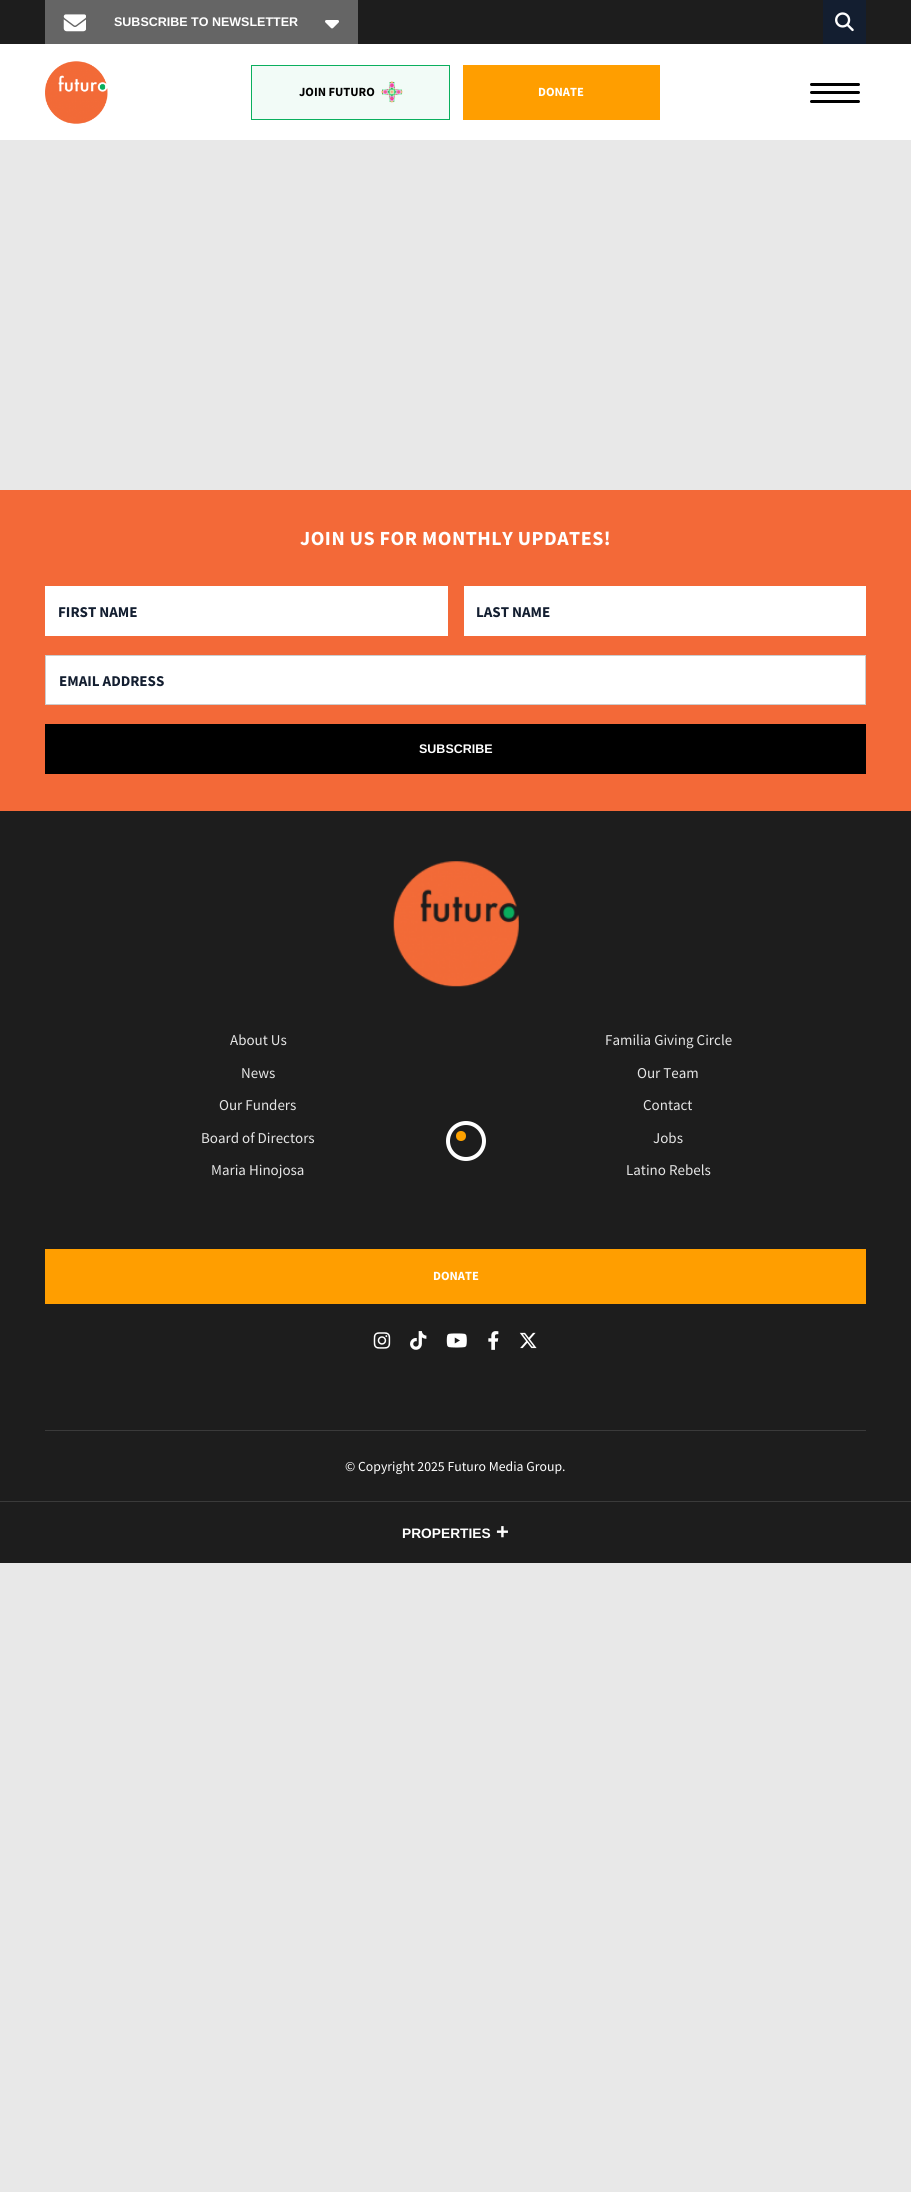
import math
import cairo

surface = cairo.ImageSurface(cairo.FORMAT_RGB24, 911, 2192)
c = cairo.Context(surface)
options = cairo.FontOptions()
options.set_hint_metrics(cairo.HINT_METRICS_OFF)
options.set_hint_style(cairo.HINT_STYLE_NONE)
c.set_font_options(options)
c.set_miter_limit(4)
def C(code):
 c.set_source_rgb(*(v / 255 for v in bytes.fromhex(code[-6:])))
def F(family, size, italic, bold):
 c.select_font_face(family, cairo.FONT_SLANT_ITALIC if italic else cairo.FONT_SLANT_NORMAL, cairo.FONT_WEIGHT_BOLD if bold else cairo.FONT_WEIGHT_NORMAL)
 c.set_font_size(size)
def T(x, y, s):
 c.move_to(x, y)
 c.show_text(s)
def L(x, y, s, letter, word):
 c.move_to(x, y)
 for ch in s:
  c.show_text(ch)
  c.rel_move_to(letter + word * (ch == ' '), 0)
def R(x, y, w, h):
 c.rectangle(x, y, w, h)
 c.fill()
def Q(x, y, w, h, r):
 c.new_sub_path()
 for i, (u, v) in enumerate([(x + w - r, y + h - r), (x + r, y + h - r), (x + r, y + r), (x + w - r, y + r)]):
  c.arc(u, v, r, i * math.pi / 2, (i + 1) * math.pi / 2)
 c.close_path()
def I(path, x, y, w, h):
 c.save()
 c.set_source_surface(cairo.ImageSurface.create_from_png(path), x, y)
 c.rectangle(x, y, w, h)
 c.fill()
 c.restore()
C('e8e8e8')
c.paint()
C('ffffff')
R(0,44,911,96)
C('1d1d1d')
R(0,0,911,44)
C('656565')
R(45,0,313,44)
I('1.png',63,14,23,18)
F('Liberation Sans',12.5,0,1)
C('ffffff')
T(114,26,'SUBSCRIBE TO NEWSLETTER')
I('2.png',325,20,14,9)
C('131e30')
R(823,0,43,44)
I('3.png',835,12,19,20)
I('4.png',45,61,63,63)
C('f2fbf7')
c.rectangle(251.5,65.5,198,54)
c.fill_preserve()
C('0aaf5e')
c.set_line_width(1)
c.stroke()
F('Source Sans Pro',12.5,0,1)
C('000000')
T(299,96,'JOIN FUTURO')
I('5.png',381,81,22,22)
C('ff9e00')
R(463,65,197,55)
C('ffffff')
T(538,96,'DONATE')
C('000000')
Q(810,83,50,3,1.5)
c.fill()
Q(810,91,50,3,1.5)
c.fill()
Q(810,100,50,3,1.5)
c.fill()
C('f36938')
R(0,490,911,321)
F('Source Sans Pro',20,0,1)
C('ffffff')
L(300,545,'JOIN US FOR MONTHLY UPDATES!',.5,0)
R(45,586,403,50)
F('Source Sans Pro',15,0,1)
C('131e30')
T(58,617,'FIRST NAME')
C('ffffff')
R(464,586,402,50)
C('131e30')
T(476,617,'LAST NAME')
C('ffffff')
c.rectangle(45.5,655.5,820,49)
c.fill_preserve()
C('cccccc')
c.stroke()
C('131e30')
T(59,686,'EMAIL ADDRESS')
C('000000')
R(45,724,821,50)
F('Liberation Sans',12.5,0,1)
C('ffffff')
T(419,753,'SUBSCRIBE')
C('1d1d1d')
R(0,811,911,690)
I('6.png',393,861,126,126)
F('Source Sans Pro',15,0,0)
C('e5e5e5')
T(230,1045,'About Us')
T(241,1078,'News')
T(219,1110,'Our Funders')
T(201,1143,'Board of Directors')
T(211,1175,'Maria Hinojosa')
T(605,1045,'Familia Giving Circle')
T(637,1078,'Our Team')
T(643,1110,'Contact')
T(653,1143,'Jobs')
T(626,1175,'Latino Rebels')
C('ff9e00')
R(45,1249,821,55)
F('Source Sans Pro',12.5,0,1)
C('ffffff')
T(433,1280,'DONATE')
I('7.png',373,1332,18,17)
I('8.png',410,1331,17,19)
I('9.png',446,1333,21,15)
I('10.png',488,1331,11,19)
I('11.png',519,1332,18,17)
C('3a3a3a')
R(45,1430,821,1)
F('Source Sans Pro',13.75,0,0)
C('ffffff')
T(345,1471,'© Copyright 2025 Futuro Media Group.')
c.new_path()
c.arc(466,1141,18,0,2 * math.pi)
c.set_line_width(4)
c.stroke()
C('fea200')
c.arc(461,1136,5,0,2 * math.pi)
c.fill()
C('1d1d1d')
R(0,1502,911,61)
C('3a3a3a')
R(0,1501,911,1)
F('Liberation Sans',13.75,0,1)
C('ffffff')
T(402,1538,'PROPERTIES')
F('Liberation Sans',22,0,1)
T(496,1539,'+')
surface.write_to_png('o.png')
